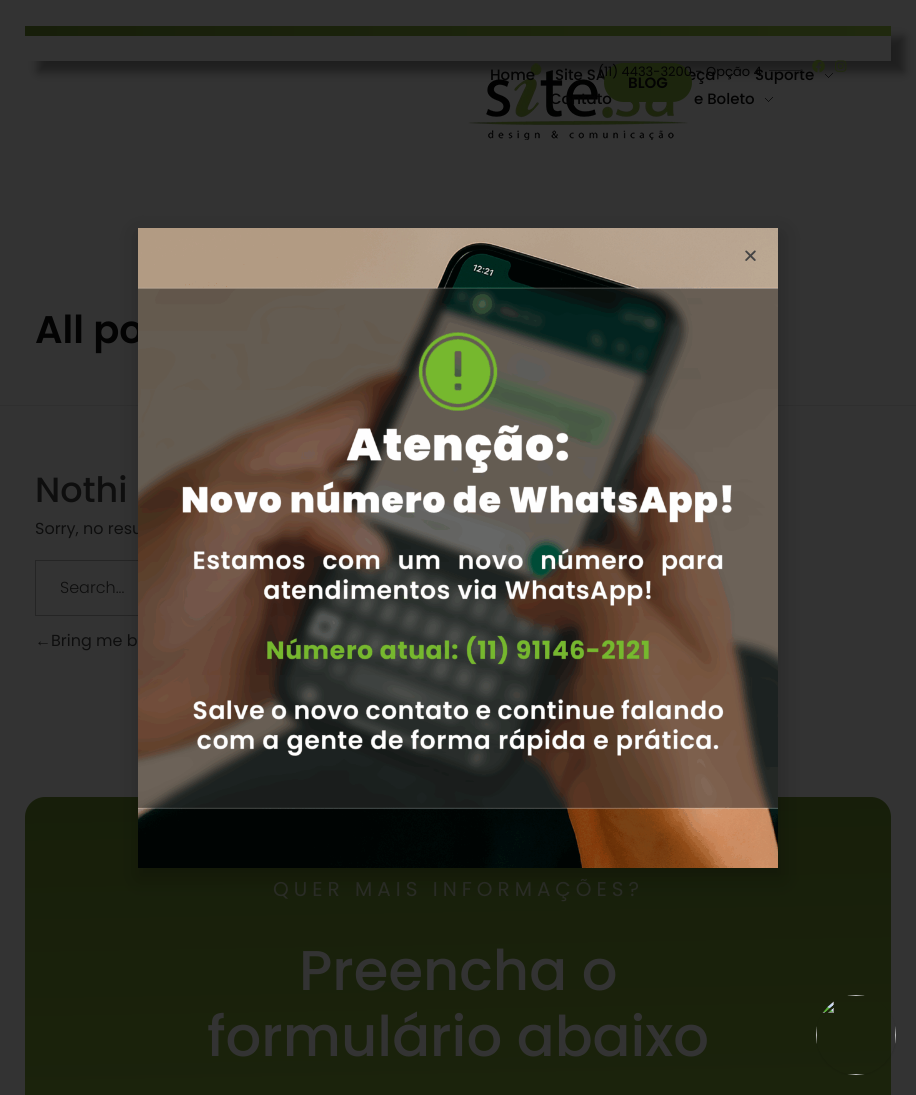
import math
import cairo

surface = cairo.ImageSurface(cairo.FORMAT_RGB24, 916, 1095)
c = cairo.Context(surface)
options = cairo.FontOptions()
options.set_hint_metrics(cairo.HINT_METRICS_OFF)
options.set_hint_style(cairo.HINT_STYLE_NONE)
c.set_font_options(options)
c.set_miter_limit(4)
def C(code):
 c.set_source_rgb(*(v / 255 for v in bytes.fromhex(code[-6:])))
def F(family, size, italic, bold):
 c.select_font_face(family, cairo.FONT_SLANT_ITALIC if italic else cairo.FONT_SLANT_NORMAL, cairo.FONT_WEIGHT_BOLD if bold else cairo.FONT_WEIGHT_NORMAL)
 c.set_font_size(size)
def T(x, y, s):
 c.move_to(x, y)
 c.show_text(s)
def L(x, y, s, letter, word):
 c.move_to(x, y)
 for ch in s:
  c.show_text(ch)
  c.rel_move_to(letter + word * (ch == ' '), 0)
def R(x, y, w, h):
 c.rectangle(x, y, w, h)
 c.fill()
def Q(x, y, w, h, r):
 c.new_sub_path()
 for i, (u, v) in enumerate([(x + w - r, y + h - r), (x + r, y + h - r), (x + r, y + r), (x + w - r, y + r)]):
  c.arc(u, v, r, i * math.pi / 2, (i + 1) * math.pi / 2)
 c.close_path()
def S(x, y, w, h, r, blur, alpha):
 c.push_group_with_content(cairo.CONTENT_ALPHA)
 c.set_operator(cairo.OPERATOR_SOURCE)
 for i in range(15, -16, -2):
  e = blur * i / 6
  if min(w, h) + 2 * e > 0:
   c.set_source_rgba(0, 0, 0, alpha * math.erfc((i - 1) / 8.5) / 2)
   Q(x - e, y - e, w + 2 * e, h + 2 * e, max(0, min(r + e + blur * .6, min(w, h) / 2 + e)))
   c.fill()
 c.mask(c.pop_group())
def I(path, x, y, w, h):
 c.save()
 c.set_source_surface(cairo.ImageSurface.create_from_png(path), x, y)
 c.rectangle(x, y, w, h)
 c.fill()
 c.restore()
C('333333')
c.paint()
c.save()
c.set_fill_rule(cairo.FILL_RULE_EVEN_ODD)
c.new_path()
c.move_to(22,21)
c.line_to(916,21)
c.line_to(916,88)
c.line_to(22,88)
c.close_path()
c.move_to(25,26)
c.line_to(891,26)
c.line_to(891,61)
c.line_to(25,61)
c.close_path()
c.clip()
C('000000')
S(38,37,866,35,0,5,.41)
c.restore()
gradient = cairo.LinearGradient(25,31,891,31)
gradient.add_color_stop_rgba(0,0.09,0.118,0.039,1)
gradient.add_color_stop_rgba(1,0.125,0.161,0.055,1)
c.set_source(gradient)
R(25,26,866,10)
I('1.png',468,63,220,77)
F('Poppins Medium',15,0,0)
C('030303')
T(555,80,'Site SA')
T(687,80,'eça')
I('4.png',726,73,8,5)
T(755,80,'Suporte')
T(550,104,'Contato')
C('1c250d')
Q(604,63,88,39,19.5)
c.fill()
F('Poppins',13,0,0)
C('030303')
T(598,76,'(11) 4433-3200 - Opção 4')
C('161616')
R(769,70,33,1)
I('2.png',812,59,13,14)
I('3.png',835,60,12,12)
F('Poppins Medium',15,0,0)
C('030303')
T(490,80,'Home')
I('4.png',825,73,8,5)
T(694,104,'e Boleto')
I('5.png',765,97,8,5)
F('Poppins SemiBold',15,0,0)
T(628,88,'BLOG')
C('2f2f2f')
R(0,405,916,1)
F('Poppins SemiBold',38.5,0,0)
C('030303')
T(35,343,'All po')
F('Poppins Medium',35,0,0)
C('0e0e0e')
T(35,502,'Nothi')
F('Poppins',16,0,0)
T(35,534,'Sorry, no resu')
c.rectangle(35.5,560.5,379,55)
C('252525')
c.set_line_width(1)
c.stroke()
F('Poppins Light',16,0,0)
C('0e0e0e')
T(60,593,'Search...')
F('Liberation Sans',16,0,0)
T(35,646,'←')
F('Poppins',16,0,0)
T(51,646,'Bring me b')
gradient = cairo.LinearGradient(452,790,464,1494)
gradient.add_color_stop_rgba(0,0.09,0.118,0.039,1)
gradient.add_color_stop_rgba(1,0.125,0.161,0.055,1)
c.set_source(gradient)
Q(25,797,866,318,20)
c.fill()
F('Poppins',20,0,0)
C('2b2d27')
L(273,896,'QUER MAIS INFORMAÇÕES?',5,0)
F('Poppins Medium',56,0,0)
C('333333')
T(299,990,'Preencha o')
T(207,1056,'formulário abaixo')
C('000000')
S(137,233,646,646,0,11.5,.2)
I('6.png',138,228,640,640)
I('7.png',745,250,11,11)
I('8.png',816,995,80,80)
surface.write_to_png('o.png')
